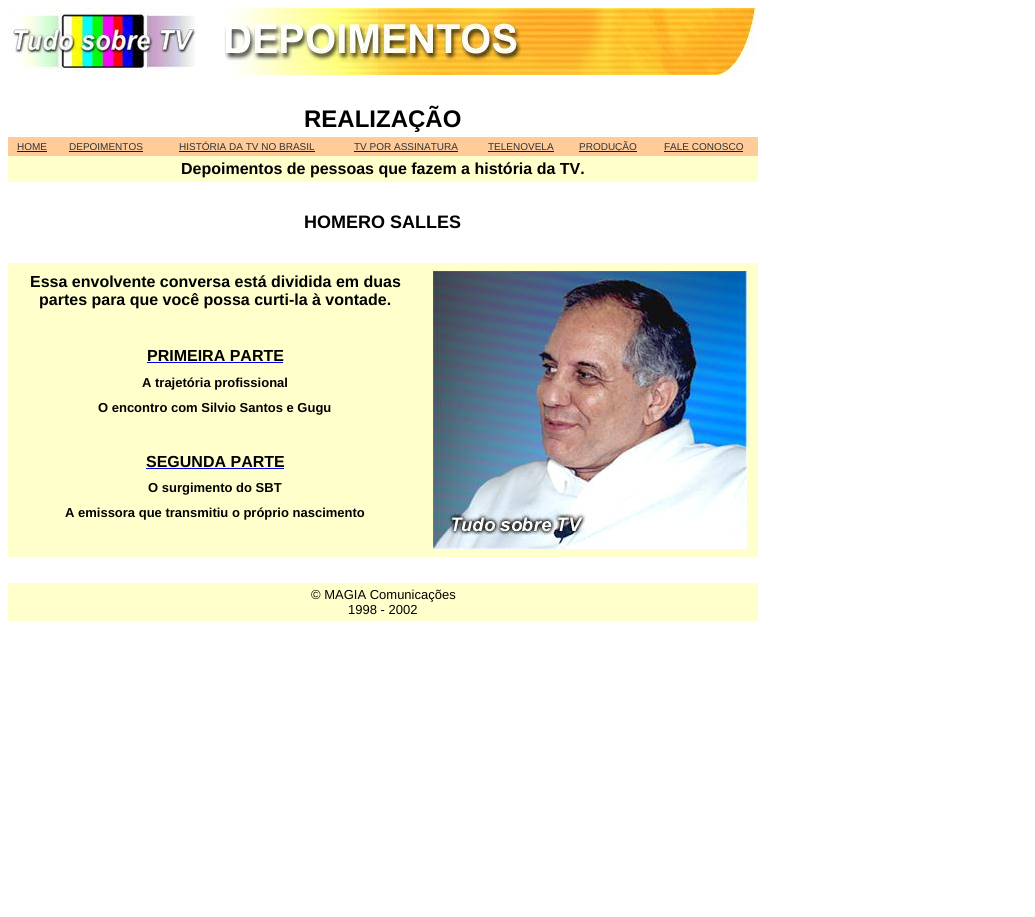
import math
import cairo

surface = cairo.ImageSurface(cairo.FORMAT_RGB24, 1035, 917)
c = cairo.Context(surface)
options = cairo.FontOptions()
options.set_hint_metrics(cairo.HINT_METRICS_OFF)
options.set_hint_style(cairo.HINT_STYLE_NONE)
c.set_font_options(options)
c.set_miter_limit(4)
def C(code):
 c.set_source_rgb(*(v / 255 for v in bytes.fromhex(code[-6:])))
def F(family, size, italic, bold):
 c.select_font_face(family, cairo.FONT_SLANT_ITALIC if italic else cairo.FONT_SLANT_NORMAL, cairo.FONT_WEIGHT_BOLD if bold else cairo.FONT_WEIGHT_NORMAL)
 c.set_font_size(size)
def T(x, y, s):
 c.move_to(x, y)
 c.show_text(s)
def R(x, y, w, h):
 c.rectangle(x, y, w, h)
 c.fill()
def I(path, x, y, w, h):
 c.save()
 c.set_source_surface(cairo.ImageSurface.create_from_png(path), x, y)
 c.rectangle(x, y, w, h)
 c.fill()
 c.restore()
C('ffffff')
c.paint()
I('1.png',8,8,748,67)
F('Liberation Sans',24,0,1)
C('000000')
T(304,127,'REALIZAÇÃO')
C('ffcc99')
R(8,137,750,19)
F('Liberation Sans',10,0,0)
C('333333')
T(17,150,'HOME')
C('0000ee')
R(17,151,30,1)
C('333333')
T(69,150,'DEPOIMENTOS')
C('0000ee')
R(69,151,74,1)
C('333333')
T(179,150,'HISTÓRIA DA TV NO BRASIL')
C('0000ee')
R(179,151,136,1)
C('333333')
T(354,150,'TV POR ASSINATURA')
C('0000ee')
R(354,151,104,1)
C('333333')
T(488,150,'TELENOVELA')
C('0000ee')
R(488,151,66,1)
R(579,151,58,1)
C('333333')
T(579,150,'PRODUÇÃO')
T(664,150,'FALE CONOSCO')
C('0000ee')
R(664,151,79,1)
C('ffffcc')
R(8,156,750,26)
F('Liberation Sans',16,0,1)
C('000000')
T(181,174,'Depoimentos de pessoas que fazem a história da TV.')
F('Liberation Sans',18,0,1)
T(304,228,'HOMERO SALLES')
C('ffffcc')
R(8,263,750,294)
F('Liberation Sans',16,0,1)
C('000000')
T(30,287,'Essa envolvente conversa está dividida em duas')
T(39,305,'partes para que você possa curti-la à vontade.')
I('2.png',433,271,314,278)
T(147,361,'PRIMEIRA PARTE')
C('0000ee')
R(147,362,136,1)
F('Liberation Sans',13,0,1)
C('000000')
T(142,387,'A trajetória profissional')
T(98,412,'O encontro com Silvio Santos e Gugu')
F('Liberation Sans',16,0,1)
T(146,467,'SEGUNDA PARTE')
C('0000ee')
R(146,468,138,1)
F('Liberation Sans',13,0,1)
C('000000')
T(148,492,'O surgimento do SBT')
T(65,517,'A emissora que transmitiu o próprio nascimento')
C('ffffcc')
R(8,583,750,38)
F('Liberation Sans',13,0,0)
C('000000')
T(311,599,'© MAGIA Comunicações')
T(348,614,'1998 - 2002')
surface.write_to_png('o.png')
